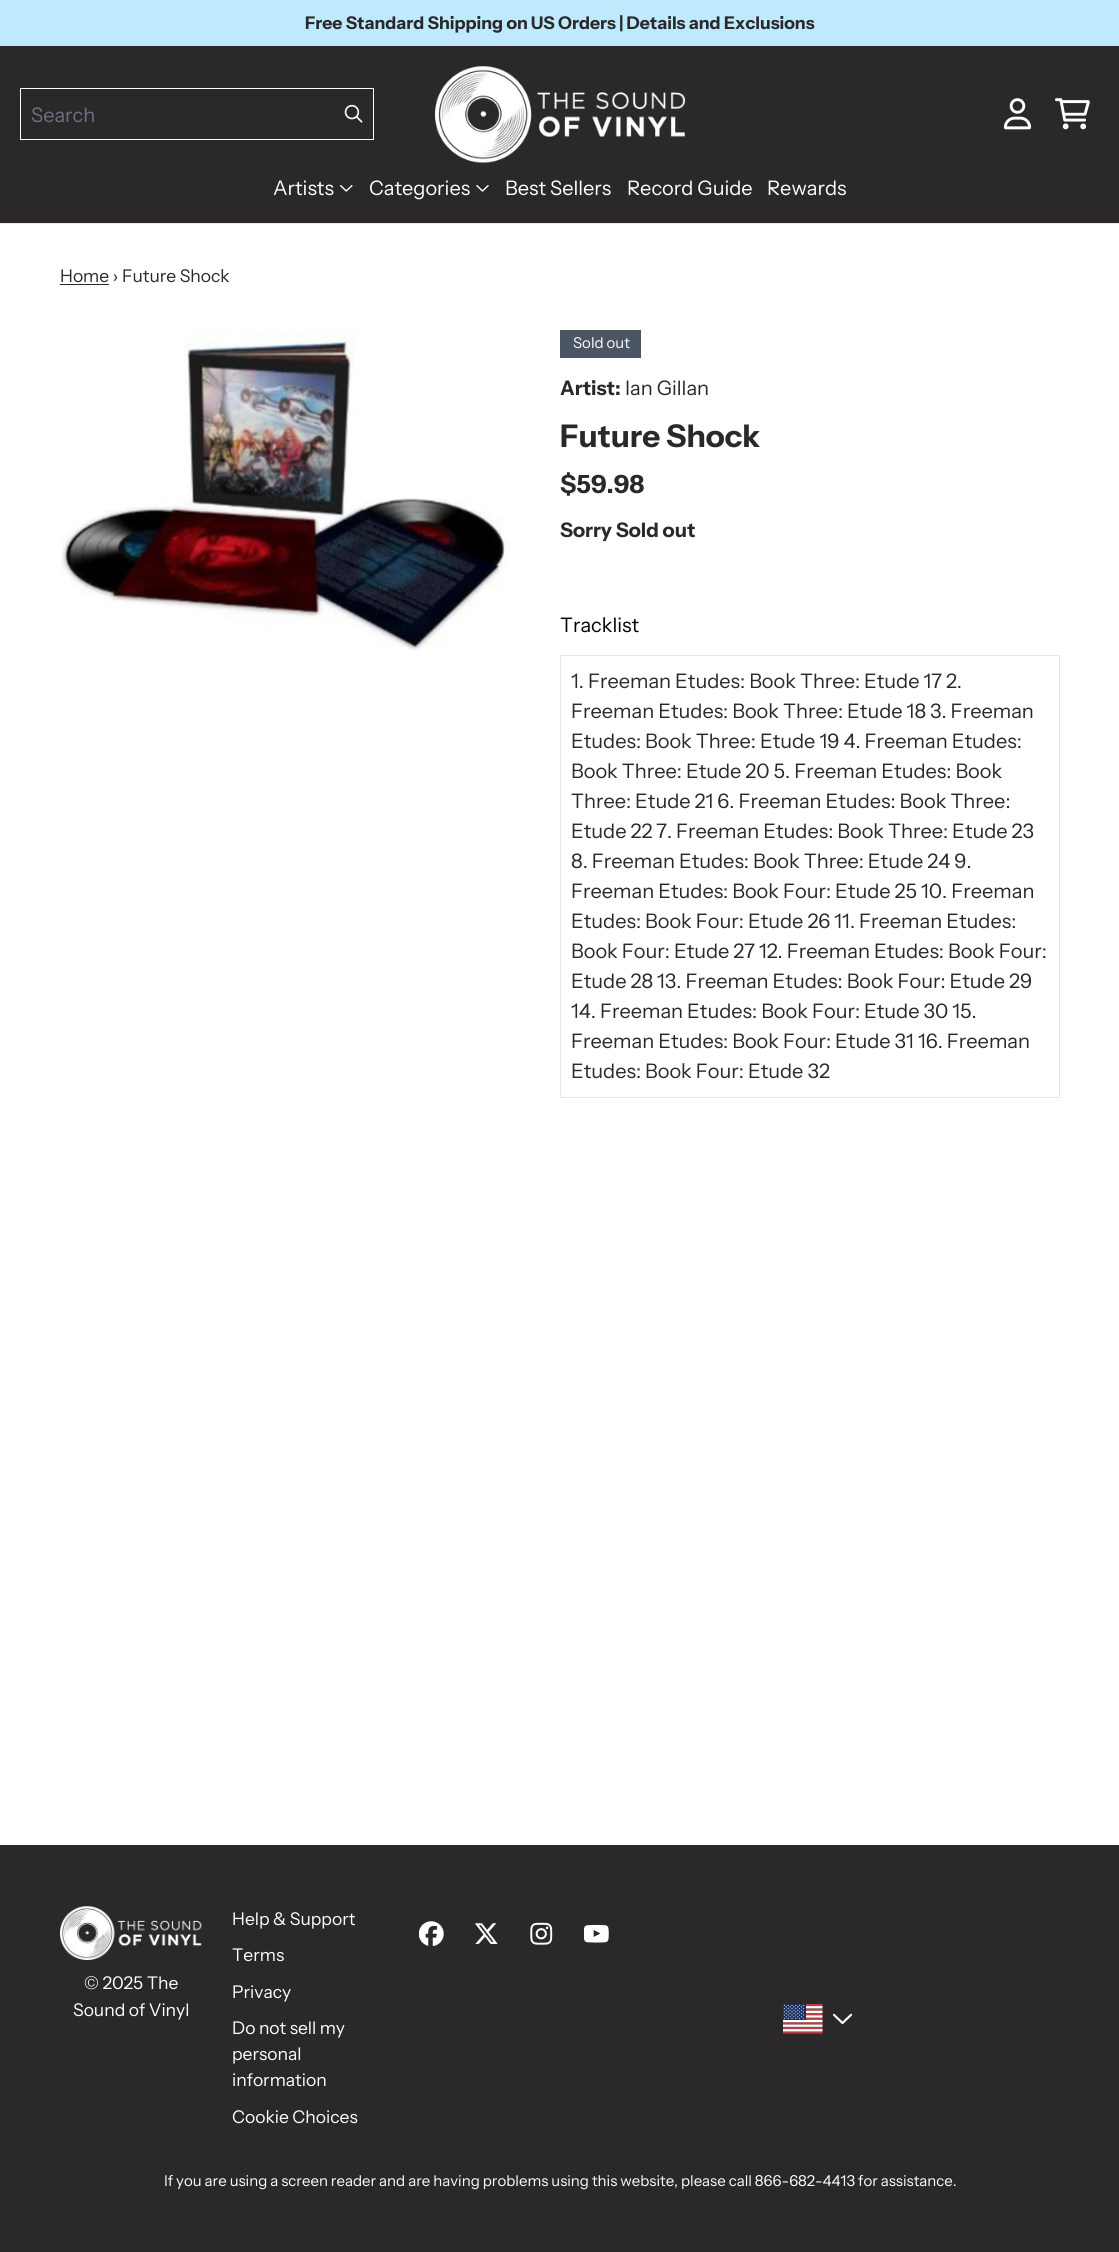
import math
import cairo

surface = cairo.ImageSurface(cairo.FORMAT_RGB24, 1119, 2252)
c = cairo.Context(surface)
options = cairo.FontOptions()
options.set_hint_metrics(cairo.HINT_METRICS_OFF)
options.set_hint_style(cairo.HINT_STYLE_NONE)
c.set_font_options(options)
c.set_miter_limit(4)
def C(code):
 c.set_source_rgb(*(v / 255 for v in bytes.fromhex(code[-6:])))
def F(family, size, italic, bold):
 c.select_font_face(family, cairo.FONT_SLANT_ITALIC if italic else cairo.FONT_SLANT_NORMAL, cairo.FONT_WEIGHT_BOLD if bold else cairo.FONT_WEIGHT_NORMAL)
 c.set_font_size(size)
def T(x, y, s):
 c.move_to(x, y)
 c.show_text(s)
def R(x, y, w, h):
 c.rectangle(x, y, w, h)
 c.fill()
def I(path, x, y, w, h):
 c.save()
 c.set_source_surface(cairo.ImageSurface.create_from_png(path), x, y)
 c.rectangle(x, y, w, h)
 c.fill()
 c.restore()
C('ffffff')
c.paint()
C('bfe9fd')
R(0,0,1119,46)
F('Instrument Sans',17.5,0,1)
C('2a2828')
T(305,29,'Free Standard Shipping on US Orders | Details and Exclusions')
R(0,46,1119,177)
C('e5e7eb')
R(0,223,1119,1)
c.rectangle(20.5,88.5,353,51)
C('ffffff')
c.set_line_width(1)
c.stroke()
F('Instrument Sans',20,0,0)
C('6b7280')
T(31,122,'Search')
I('1.png',344,104,19,19)
I('2.png',435,66,250,97)
I('3.png',1003,98,29,32)
I('4.png',1055,98,35,32)
C('ffffff')
T(273,195,'Artists')
I('5.png',340,185,13,7)
T(369,195,'Categories')
I('6.png',476,185,13,7)
T(505,195,'Best Sellers')
T(627,195,'Record Guide')
T(767,195,'Rewards')
F('Instrument Sans',17.5,0,0)
C('2a2828')
T(60,282,'Home › Future Shock')
R(60,284,49,1)
I('7.png',61,330,449,321)
C('4b5563')
R(560,330,81,28)
F('Instrument Sans',15,0,0)
C('ffffff')
T(573,348,'Sold out')
F('Instrument Sans',20,0,1)
C('2a2828')
T(560,395,'Artist:')
F('Instrument Sans',20,0,0)
T(625,395,'Ian Gillan')
F('Instrument Sans',31.25,0,1)
T(560,447,'Future Shock')
F('Instrument Sans',25,0,1)
T(560,493,'$59.98')
F('Instrument Sans',20,0,1)
T(560,537,'Sorry Sold out')
F('Instrument Sans',20,0,0)
C('000000')
T(560,632,'Tracklist')
c.rectangle(560.5,655.5,499,442)
C('e5e7eb')
c.stroke()
C('2a2828')
T(571,688,'1. Freeman Etudes: Book Three: Etude 17 2.')
T(571,718,'Freeman Etudes: Book Three: Etude 18 3. Freeman')
T(571,748,'Etudes: Book Three: Etude 19 4. Freeman Etudes:')
T(571,778,'Book Three: Etude 20 5. Freeman Etudes: Book')
T(571,808,'Three: Etude 21 6. Freeman Etudes: Book Three:')
T(571,838,'Etude 22 7. Freeman Etudes: Book Three: Etude 23')
T(571,868,'8. Freeman Etudes: Book Three: Etude 24 9.')
T(571,898,'Freeman Etudes: Book Four: Etude 25 10. Freeman')
T(571,928,'Etudes: Book Four: Etude 26 11. Freeman Etudes:')
T(571,958,'Book Four: Etude 27 12. Freeman Etudes: Book Four:')
T(571,988,'Etude 28 13. Freeman Etudes: Book Four: Etude 29')
T(571,1018,'14. Freeman Etudes: Book Four: Etude 30 15.')
T(571,1048,'Freeman Etudes: Book Four: Etude 31 16. Freeman')
T(571,1078,'Etudes: Book Four: Etude 32')
R(0,1845,1119,407)
F('Instrument Sans',17.5,0,0)
C('ffffff')
T(232,1925,'Help & Support')
T(232,1961,'Terms')
T(232,1998,'Privacy')
T(232,2034,'Do not sell my')
T(232,2060,'personal')
T(232,2086,'information')
T(232,2123,'Cookie Choices')
I('8.png',419,1921,25,25)
I('9.png',475,1923,23,21)
I('10.png',530,1922,23,23)
I('11.png',584,1924,25,19)
I('12.png',60,1906,142,54)
T(84,1989,'© 2025 The')
T(73,2016,'Sound of Vinyl')
I('13.png',783,2004,40,30)
I('14.png',833,2013,20,12)
F('Instrument Sans',15,0,0)
T(164,2186,'If you are using a screen reader and are having problems using this website, please call 866-682-4413 for assistance.')
surface.write_to_png('o.png')
